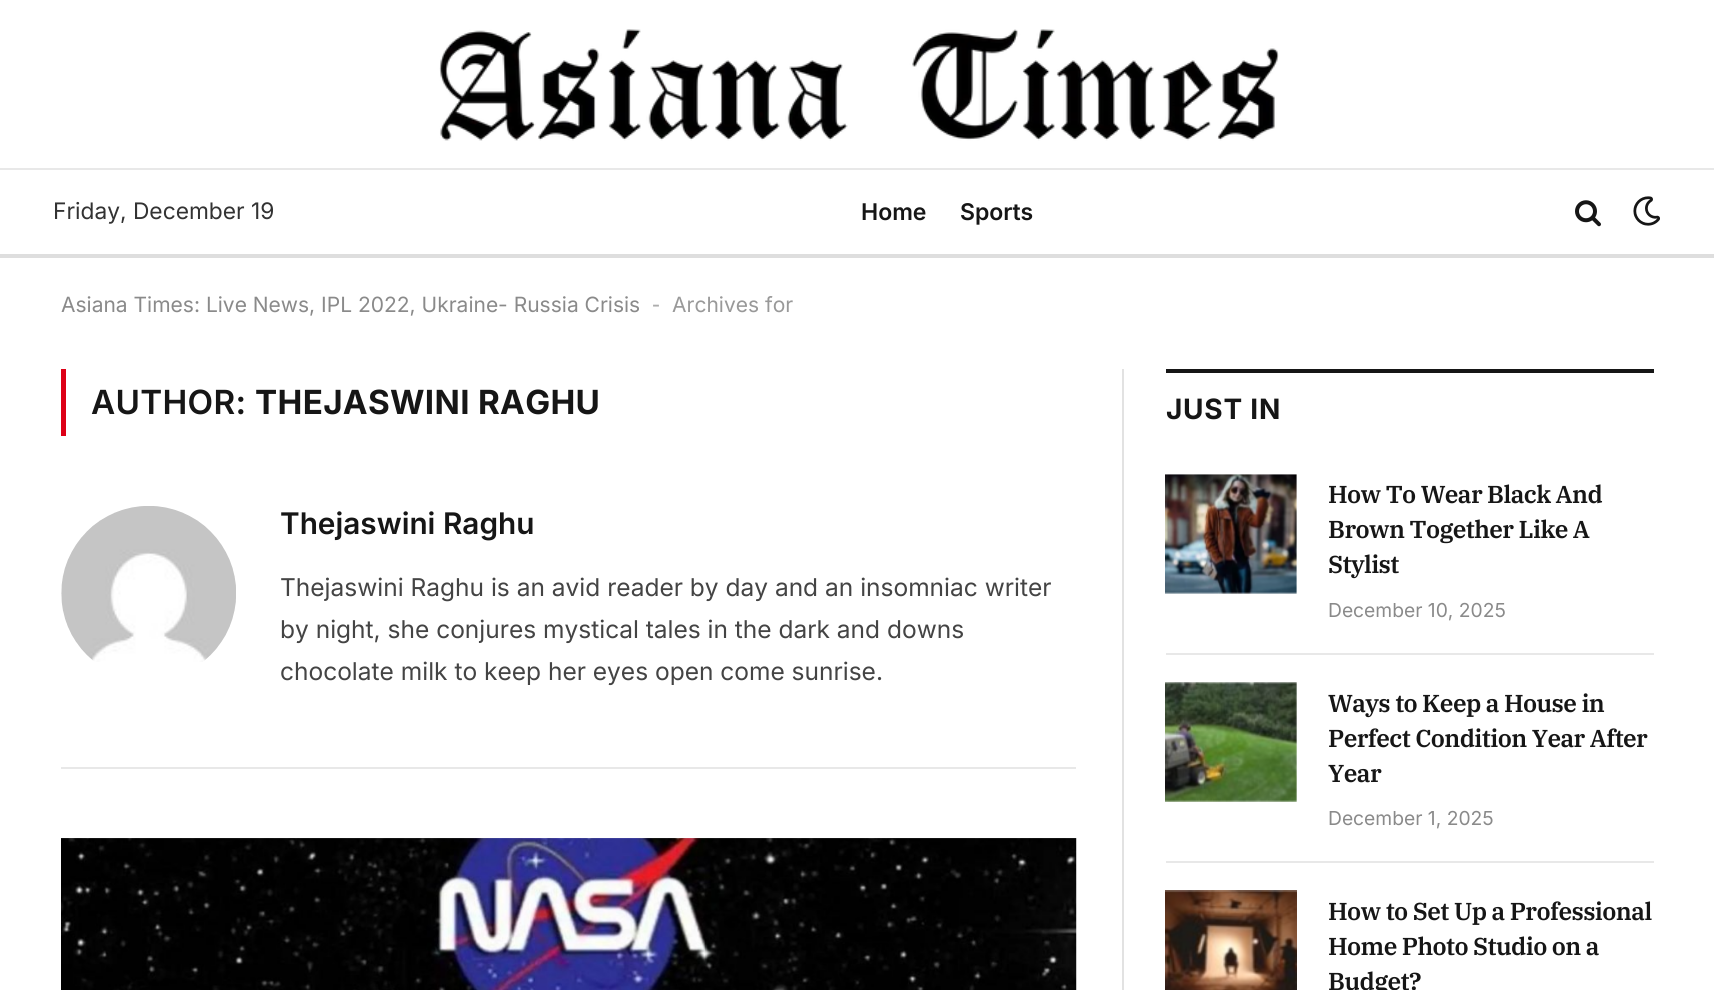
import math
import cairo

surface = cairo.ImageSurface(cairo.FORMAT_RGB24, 1714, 990)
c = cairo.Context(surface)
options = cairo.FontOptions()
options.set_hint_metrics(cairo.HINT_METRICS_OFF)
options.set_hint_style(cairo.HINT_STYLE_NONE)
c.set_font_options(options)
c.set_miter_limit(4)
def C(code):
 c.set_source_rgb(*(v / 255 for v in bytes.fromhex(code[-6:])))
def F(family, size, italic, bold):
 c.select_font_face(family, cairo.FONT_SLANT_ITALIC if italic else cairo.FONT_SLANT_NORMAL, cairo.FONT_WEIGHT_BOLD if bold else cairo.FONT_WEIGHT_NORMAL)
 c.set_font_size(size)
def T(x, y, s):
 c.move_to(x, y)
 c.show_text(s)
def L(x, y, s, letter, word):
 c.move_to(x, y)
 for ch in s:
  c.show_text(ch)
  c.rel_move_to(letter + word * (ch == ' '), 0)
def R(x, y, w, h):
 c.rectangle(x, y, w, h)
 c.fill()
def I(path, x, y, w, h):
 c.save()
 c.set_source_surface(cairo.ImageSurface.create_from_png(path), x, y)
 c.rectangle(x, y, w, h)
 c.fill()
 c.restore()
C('ffffff')
c.paint()
I('1.png',439,29,840,112)
C('e8e8e8')
R(0,168,1714,2)
C('dedede')
R(0,254,1714,4)
F('Inter',22.75,0,0)
C('333333')
T(53,219,'Friday, December 19')
F('Inter SemiBold',23,0,0)
C('161616')
T(861,220,'Home')
T(960,220,'Sports')
I('2.png',1575,200,26,27)
I('3.png',1633,196,27,30)
F('Inter',21,0,0)
C('8a8a8a')
T(61,312,'Asiana Times: Live News, IPL 2022, Ukraine- Russia Crisis')
F('Liberation Sans',24,0,0)
C('adadad')
T(652,312,'-')
F('Inter',21,0,0)
C('999999')
T(672,312,'Archives for')
C('dd0017')
R(61,369,5,67)
F('Inter SemiBold',33.25,0,0)
C('161616')
L(91,414,'AUTHOR:',.3,0)
F('Inter',33.25,0,1)
L(255,414,'THEJASWINI RAGHU',.3,0)
C('e8e8e8')
R(61,767,1015,2)
I('4.png',61,506,175,156)
F('Inter SemiBold',29.75,0,0)
C('161616')
T(280,534,'Thejaswini Raghu')
F('Inter',24.5,0,0)
C('444444')
T(280,596,'Thejaswini Raghu is an avid reader by day and an insomniac writer')
T(280,638,'by night, she conjures mystical tales in the dark and downs')
T(280,680,'chocolate milk to keep her eyes open come sunrise.')
I('5.png',61,838,1016,152)
C('e2e2e2')
R(1122,369,2,621)
C('161616')
R(1166,369,488,4)
F('Inter',28,0,1)
L(1166,419,'JUST IN',.75,0)
I('6.png',1165,474,132,120)
F('IBM Plex Serif SemiBold',24.5,0,0)
L(1328,503,'How To Wear Black And',-.6,0)
L(1328,538,'Brown Together Like A',-.6,0)
L(1328,573,'Stylist',-.6,0)
F('Inter',19.25,0,0)
C('8a8a8a')
T(1328,617,'December 10, 2025')
C('e8e8e8')
R(1166,653,488,2)
I('7.png',1165,682,132,120)
F('IBM Plex Serif SemiBold',24.5,0,0)
C('161616')
L(1328,712,'Ways to Keep a House in',-.6,0)
L(1328,747,'Perfect Condition Year After',-.6,0)
L(1328,782,'Year',-.6,0)
F('Inter',19.25,0,0)
C('8a8a8a')
T(1328,825,'December 1, 2025')
C('e8e8e8')
R(1166,861,488,2)
I('8.png',1165,890,132,100)
F('IBM Plex Serif SemiBold',24.5,0,0)
C('161616')
L(1328,920,'How to Set Up a Professional',-.6,0)
L(1328,955,'Home Photo Studio on a',-.6,0)
L(1328,990,'Budget?',-.6,0)
surface.write_to_png('o.png')
